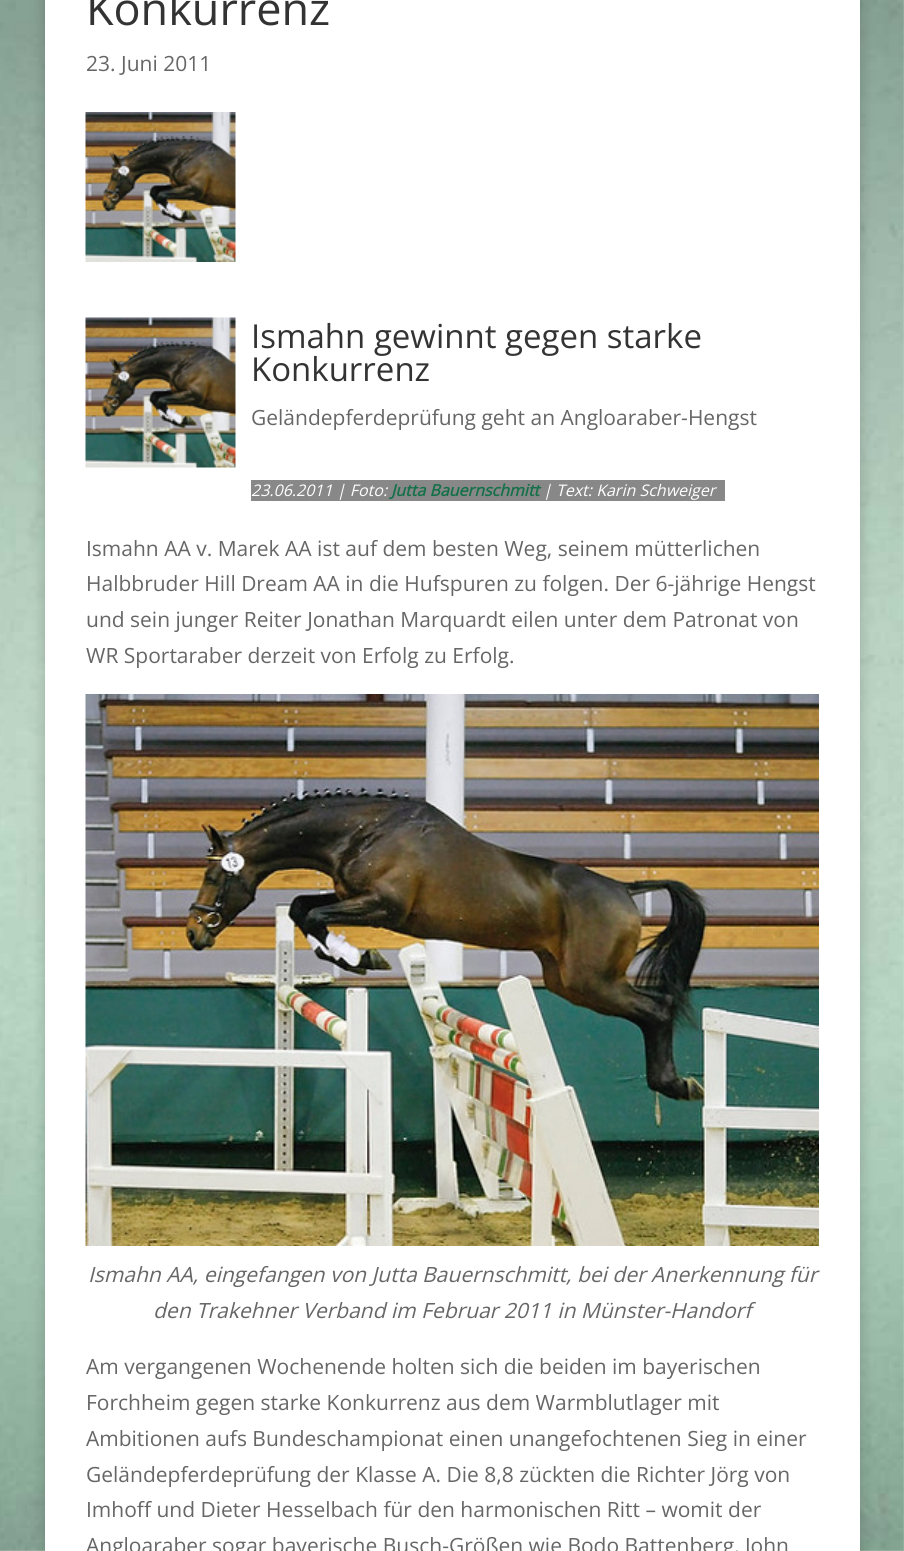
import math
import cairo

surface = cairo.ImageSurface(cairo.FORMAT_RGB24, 904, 1551)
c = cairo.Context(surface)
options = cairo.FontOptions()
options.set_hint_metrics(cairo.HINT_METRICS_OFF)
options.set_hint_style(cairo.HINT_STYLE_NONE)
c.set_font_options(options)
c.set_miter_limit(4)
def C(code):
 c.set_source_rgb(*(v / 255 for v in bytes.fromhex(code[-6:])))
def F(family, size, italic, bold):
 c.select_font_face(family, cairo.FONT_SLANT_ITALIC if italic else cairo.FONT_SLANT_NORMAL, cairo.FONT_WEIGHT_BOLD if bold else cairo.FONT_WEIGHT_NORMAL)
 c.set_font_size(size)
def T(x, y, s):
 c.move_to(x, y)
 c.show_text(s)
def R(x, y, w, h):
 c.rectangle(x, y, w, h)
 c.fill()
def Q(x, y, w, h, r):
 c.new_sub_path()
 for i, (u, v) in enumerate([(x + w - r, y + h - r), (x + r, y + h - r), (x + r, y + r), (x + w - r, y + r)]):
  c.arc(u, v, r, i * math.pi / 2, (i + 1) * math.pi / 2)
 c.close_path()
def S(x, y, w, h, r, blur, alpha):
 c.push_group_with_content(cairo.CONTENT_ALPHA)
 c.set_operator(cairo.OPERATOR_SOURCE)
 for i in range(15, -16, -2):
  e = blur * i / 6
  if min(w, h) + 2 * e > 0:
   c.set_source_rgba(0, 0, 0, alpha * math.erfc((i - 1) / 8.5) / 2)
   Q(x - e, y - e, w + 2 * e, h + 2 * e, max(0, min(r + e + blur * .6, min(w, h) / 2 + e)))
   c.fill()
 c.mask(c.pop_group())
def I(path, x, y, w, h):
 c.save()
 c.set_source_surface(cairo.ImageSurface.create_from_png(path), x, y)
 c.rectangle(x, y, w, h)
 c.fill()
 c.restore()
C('ffffff')
c.paint()
I('1.png',0,0,904,1551)
C('000000')
S(45,-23,815,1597,0,7.5,.2)
C('ffffff')
R(45,0,815,1551)
F('Open Sans',45,0,0)
C('333333')
T(86,25,'Konkurrenz')
F('Open Sans',21,0,0)
C('666666')
T(86,71,'23. Juni 2011')
I('2.png',85,112,151,150)
I('3.png',85,317,151,151)
F('Open Sans',33,0,0)
C('333333')
T(251,348,'Ismahn gewinnt gegen starke')
T(251,381,'Konkurrenz')
F('Open Sans',21,0,0)
C('666666')
T(251,425,'Geländepferdeprüfung geht an Angloaraber-Hengst')
C('888888')
R(251,480,474,21)
F('Open Sans',16,1,0)
C('ffffff')
T(251,496,'23.06.2011 | Foto:')
F('Open Sans',16,1,1)
C('147049')
T(391,496,'Jutta Bauernschmitt')
F('Open Sans',16,1,0)
C('ffffff')
T(543,496,'| Text: Karin Schweiger')
F('Open Sans',21,0,0)
C('666666')
T(86,556,'Ismahn AA v. Marek AA ist auf dem besten Weg, seinem mütterlichen')
T(86,591,'Halbbruder Hill Dream AA in die Hufspuren zu folgen. Der 6-jährige Hengst')
T(86,627,'und sein junger Reiter Jonathan Marquardt eilen unter dem Patronat von')
T(86,663,'WR Sportaraber derzeit von Erfolg zu Erfolg.')
I('4.png',85,694,734,552)
F('Open Sans',21,1,0)
T(88,1282,'Ismahn AA, eingefangen von Jutta Bauernschmitt, bei der Anerkennung für')
T(153,1318,'den Trakehner Verband im Februar 2011 in Münster-Handorf')
F('Open Sans',21,0,0)
T(86,1374,'Am vergangenen Wochenende holten sich die beiden im bayerischen')
T(86,1410,'Forchheim gegen starke Konkurrenz aus dem Warmblutlager mit')
T(86,1446,'Ambitionen aufs Bundeschampionat einen unangefochtenen Sieg in einer')
T(86,1482,'Geländepferdeprüfung der Klasse A. Die 8,8 zückten die Richter Jörg von')
T(86,1517,'Imhoff und Dieter Hesselbach für den harmonischen Ritt – womit der')
T(86,1553,'Angloaraber sogar bayerische Busch-Größen wie Bodo Battenberg, John')
surface.write_to_png('o.png')
